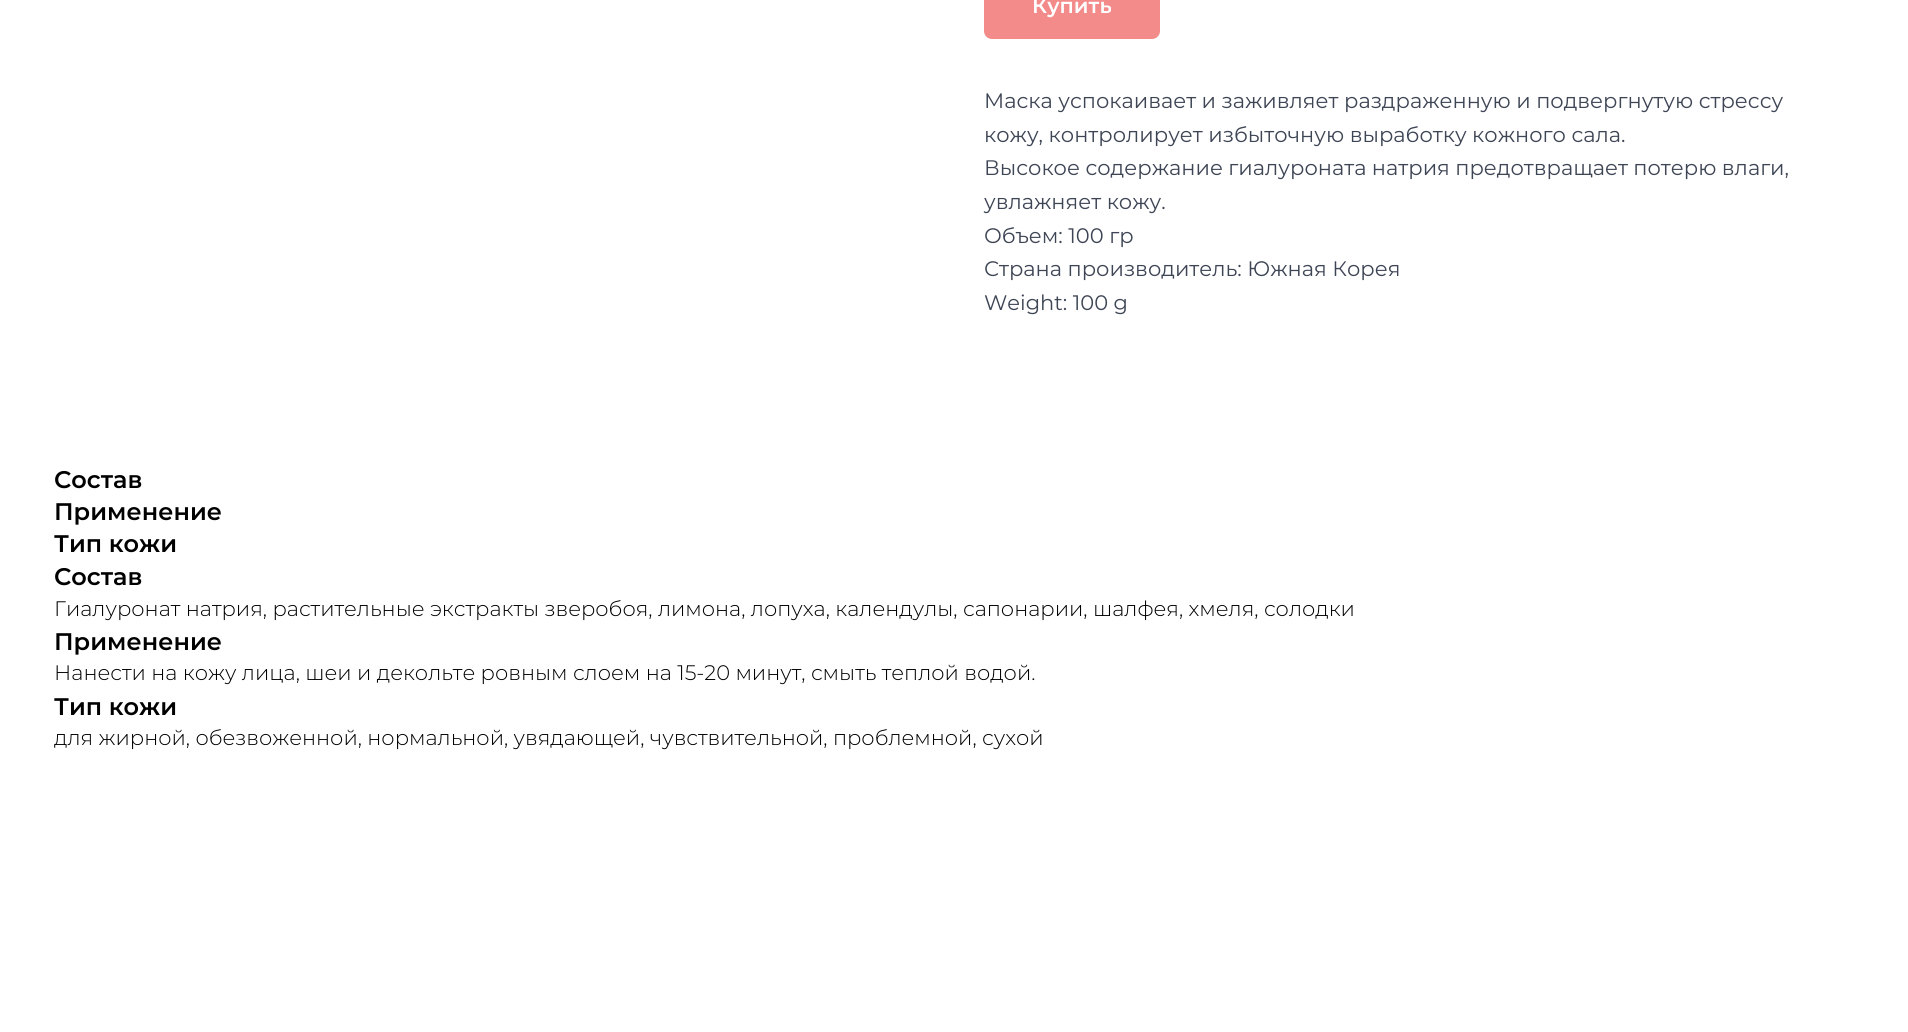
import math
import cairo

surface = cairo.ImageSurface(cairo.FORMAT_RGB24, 1908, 1032)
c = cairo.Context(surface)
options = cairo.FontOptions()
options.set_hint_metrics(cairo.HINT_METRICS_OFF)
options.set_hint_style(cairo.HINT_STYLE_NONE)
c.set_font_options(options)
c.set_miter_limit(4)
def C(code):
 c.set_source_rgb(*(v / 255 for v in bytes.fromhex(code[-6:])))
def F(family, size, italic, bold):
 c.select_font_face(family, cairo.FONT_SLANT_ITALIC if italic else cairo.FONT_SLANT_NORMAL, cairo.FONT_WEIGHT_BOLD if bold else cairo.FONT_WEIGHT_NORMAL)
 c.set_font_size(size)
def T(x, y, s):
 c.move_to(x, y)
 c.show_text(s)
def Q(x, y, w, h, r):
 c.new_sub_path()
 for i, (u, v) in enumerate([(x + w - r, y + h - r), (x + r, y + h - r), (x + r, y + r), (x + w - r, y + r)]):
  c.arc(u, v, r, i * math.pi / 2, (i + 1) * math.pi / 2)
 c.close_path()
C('ffffff')
c.paint()
C('f38b8b')
Q(985.5,-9.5,173,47,6.5)
c.fill_preserve()
c.set_line_width(3)
c.stroke()
F('Montserrat SemiBold',21,0,0)
C('ffffff')
T(1032,13,'Купить')
F('Montserrat',21,0,0)
C('3e4555')
T(984,108,'Маска успокаивает и заживляет раздраженную и подвергнутую стрессу')
T(984,142,'кожу, контролирует избыточную выработку кожного сала.')
T(984,175,'Высокое содержание гиалуроната натрия предотвращает потерю влаги,')
T(984,209,'увлажняет кожу.')
T(984,243,'Объем: 100 гр')
T(984,276,'Страна производитель: Южная Корея')
T(984,310,'Weight: 100 g')
F('Montserrat SemiBold',24,0,0)
C('000000')
T(54,488,'Состав')
T(54,520,'Применение')
T(54,552,'Тип кожи')
T(54,585,'Состав')
F('Montserrat Light',21,0,0)
T(54,616,'Гиалуронат натрия, растительные экстракты зверобоя, лимона, лопуха, календулы, сапонарии, шалфея, хмеля, солодки')
F('Montserrat SemiBold',24,0,0)
T(54,650,'Применение')
F('Montserrat Light',21,0,0)
T(54,680,'Нанести на кожу лица, шеи и декольте ровным слоем на 15-20 минут, смыть теплой водой.')
F('Montserrat SemiBold',24,0,0)
T(54,715,'Тип кожи')
F('Montserrat Light',21,0,0)
T(54,745,'для жирной, обезвоженной, нормальной, увядающей, чувствительной, проблемной, сухой')
surface.write_to_png('o.png')
